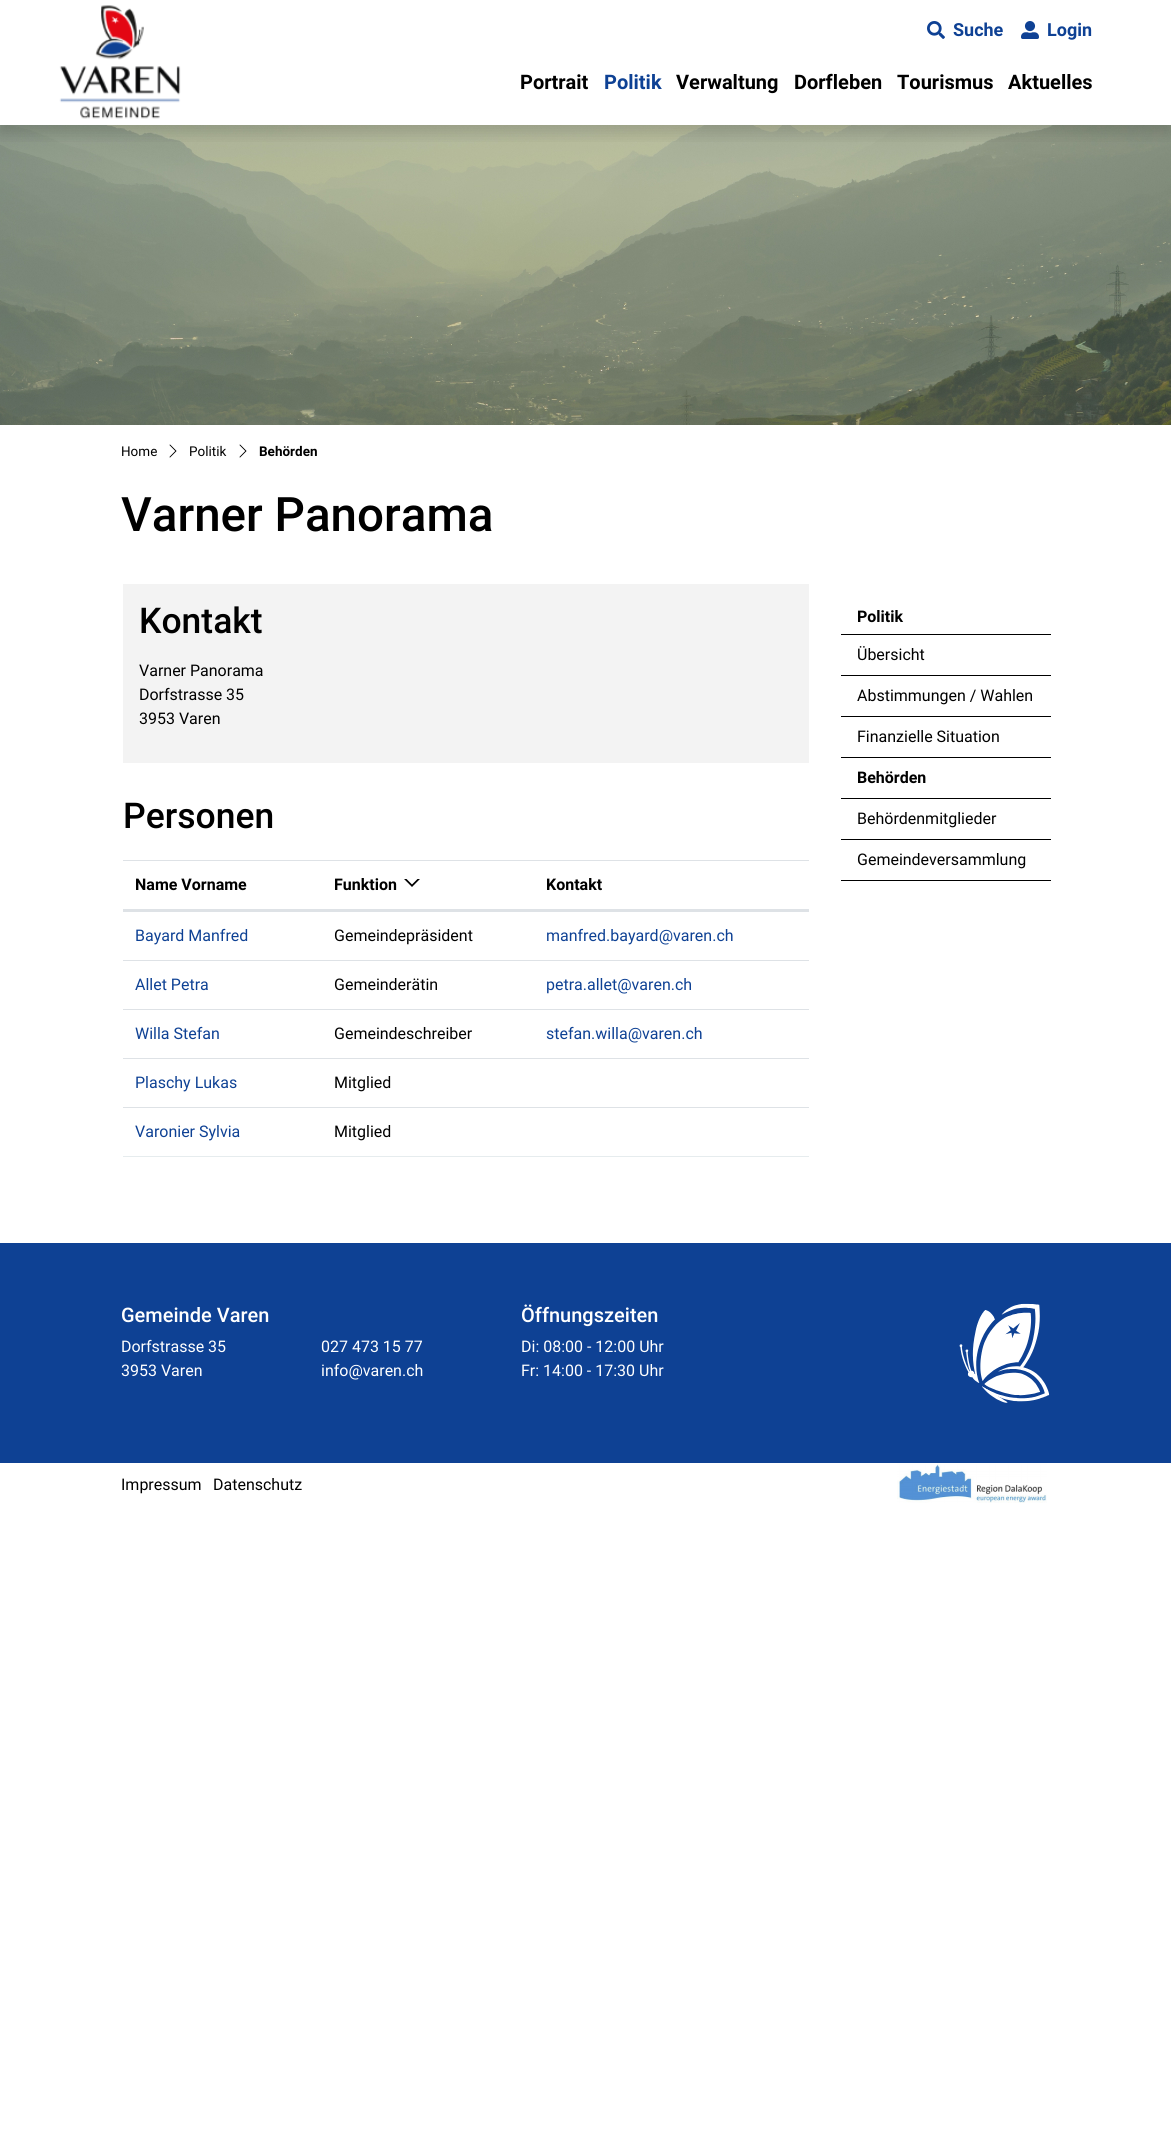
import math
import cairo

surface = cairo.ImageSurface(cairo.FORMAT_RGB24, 1171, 2133)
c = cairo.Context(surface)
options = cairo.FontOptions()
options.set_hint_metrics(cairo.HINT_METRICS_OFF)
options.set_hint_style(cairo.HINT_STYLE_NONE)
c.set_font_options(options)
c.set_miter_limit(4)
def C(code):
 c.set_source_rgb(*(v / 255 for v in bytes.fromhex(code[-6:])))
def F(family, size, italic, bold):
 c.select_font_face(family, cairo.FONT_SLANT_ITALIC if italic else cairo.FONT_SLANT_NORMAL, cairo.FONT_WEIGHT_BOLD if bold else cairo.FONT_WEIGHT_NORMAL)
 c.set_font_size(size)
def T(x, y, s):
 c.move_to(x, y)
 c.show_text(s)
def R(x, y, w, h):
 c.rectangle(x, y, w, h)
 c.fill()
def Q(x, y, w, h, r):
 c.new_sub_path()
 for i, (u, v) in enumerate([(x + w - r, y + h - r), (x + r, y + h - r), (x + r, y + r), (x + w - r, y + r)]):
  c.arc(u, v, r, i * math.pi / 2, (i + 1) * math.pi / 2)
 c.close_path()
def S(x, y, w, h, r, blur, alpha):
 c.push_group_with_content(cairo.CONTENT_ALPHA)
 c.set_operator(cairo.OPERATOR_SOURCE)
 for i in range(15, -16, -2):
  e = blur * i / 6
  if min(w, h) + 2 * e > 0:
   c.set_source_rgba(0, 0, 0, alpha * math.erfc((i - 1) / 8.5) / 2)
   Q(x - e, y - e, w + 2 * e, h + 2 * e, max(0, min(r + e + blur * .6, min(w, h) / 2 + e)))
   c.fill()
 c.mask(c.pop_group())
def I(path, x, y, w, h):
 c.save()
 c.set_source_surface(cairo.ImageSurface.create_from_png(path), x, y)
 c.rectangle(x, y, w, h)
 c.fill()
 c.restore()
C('ffffff')
c.paint()
I('4.png',0,125,1171,300)
c.save()
c.rectangle(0,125,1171,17)
c.clip()
C('000000')
S(0,8,1171,125,0,8,.15)
c.restore()
I('1.png',59,5,122,114)
I('2.png',927,21,18,18)
F('Roboto',18,0,1)
C('0e4194')
T(953,36,'Suche')
I('3.png',1021,21,18,18)
T(1047,36,'Login')
F('Roboto',20,0,1)
C('000000')
T(520,89,'Portrait')
C('0e4194')
T(604,89,'Politik')
C('000000')
T(676,89,'Verwaltung')
T(794,89,'Dorfleben')
T(897,89,'Tourismus')
T(1008,89,'Aktuelles')
F('Roboto',13.5,0,0)
T(121,456,'Home')
I('5.png',169,444,8,14)
T(189,456,'Politik')
I('5.png',239,444,8,14)
F('Roboto',13.5,0,1)
T(259,456,'Behörden')
F('Roboto Medium',47.5,0,0)
T(121,531,'Varner Panorama')
C('f3f3f3')
R(123,584,686,179)
F('Roboto Medium',35.5,0,0)
C('000000')
T(139,633,'Kontakt')
F('Roboto',16,0,0)
T(139,676,'Varner Panorama')
T(139,700,'Dorfstrasse 35')
T(139,724,'3953 Varen')
F('Roboto Medium',35.5,0,0)
T(123,828,'Personen')
C('e6ecee')
R(123,1156,686,1)
C('dee2e6')
R(123,860,686,1)
R(123,909,686,2)
F('Roboto',16,0,1)
C('000000')
T(135,890,'Name Vorname')
T(334,890,'Funktion')
I('6.png',404,879,16,8)
T(546,890,'Kontakt')
C('dee2e6')
R(123,911,686,1)
F('Roboto',16,0,0)
C('0e4194')
T(135,941,'Bayard Manfred')
C('000000')
T(334,941,'Gemeindepräsident')
C('0e4194')
T(546,941,'manfred.bayard@varen.ch')
C('dee2e6')
R(123,960,686,1)
C('0e4194')
T(135,990,'Allet Petra')
C('000000')
T(334,990,'Gemeinderätin')
C('0e4194')
T(546,990,'petra.allet@varen.ch')
C('dee2e6')
R(123,1009,686,1)
C('0e4194')
T(135,1039,'Willa Stefan')
C('000000')
T(334,1039,'Gemeindeschreiber')
C('0e4194')
T(546,1039,'stefan.willa@varen.ch')
C('dee2e6')
R(123,1058,686,1)
C('0e4194')
T(135,1088,'Plaschy Lukas')
C('000000')
T(334,1088,'Mitglied')
C('dee2e6')
R(123,1107,686,1)
C('0e4194')
T(135,1137,'Varonier Sylvia')
C('000000')
T(334,1137,'Mitglied')
R(841,634,210,1)
F('Roboto',16,0,1)
T(857,622,'Politik')
R(841,675,210,1)
F('Roboto',16,0,0)
T(857,660,'Übersicht')
R(841,716,210,1)
T(857,701,'Abstimmungen / Wahlen')
R(841,757,210,1)
T(857,742,'Finanzielle Situation')
R(841,798,210,1)
F('Roboto',16,0,1)
T(857,783,'Behörden')
R(841,839,210,1)
F('Roboto',16,0,0)
T(857,824,'Behördenmitglieder')
R(841,880,210,1)
T(857,865,'Gemeindeversammlung')
C('0e4194')
R(0,1243,1171,220)
F('Roboto Medium',20,0,0)
C('ffffff')
T(121,1322,'Gemeinde Varen')
F('Roboto',16,0,0)
T(121,1352,'Dorfstrasse 35')
T(121,1376,'3953 Varen')
T(321,1352,'027 473 15 77')
T(321,1376,'info@varen.ch')
F('Roboto Medium',20,0,0)
T(521,1322,'Öffnungszeiten')
F('Roboto',16,0,0)
T(521,1352,'Di: 08:00 - 12:00 Uhr')
T(521,1376,'Fr: 14:00 - 17:30 Uhr')
I('7.png',959,1303,91,100)
I('8.png',897,1463,150,40)
C('000000')
T(121,1490,'Impressum')
T(213,1490,'Datenschutz')
surface.write_to_png('o.png')
